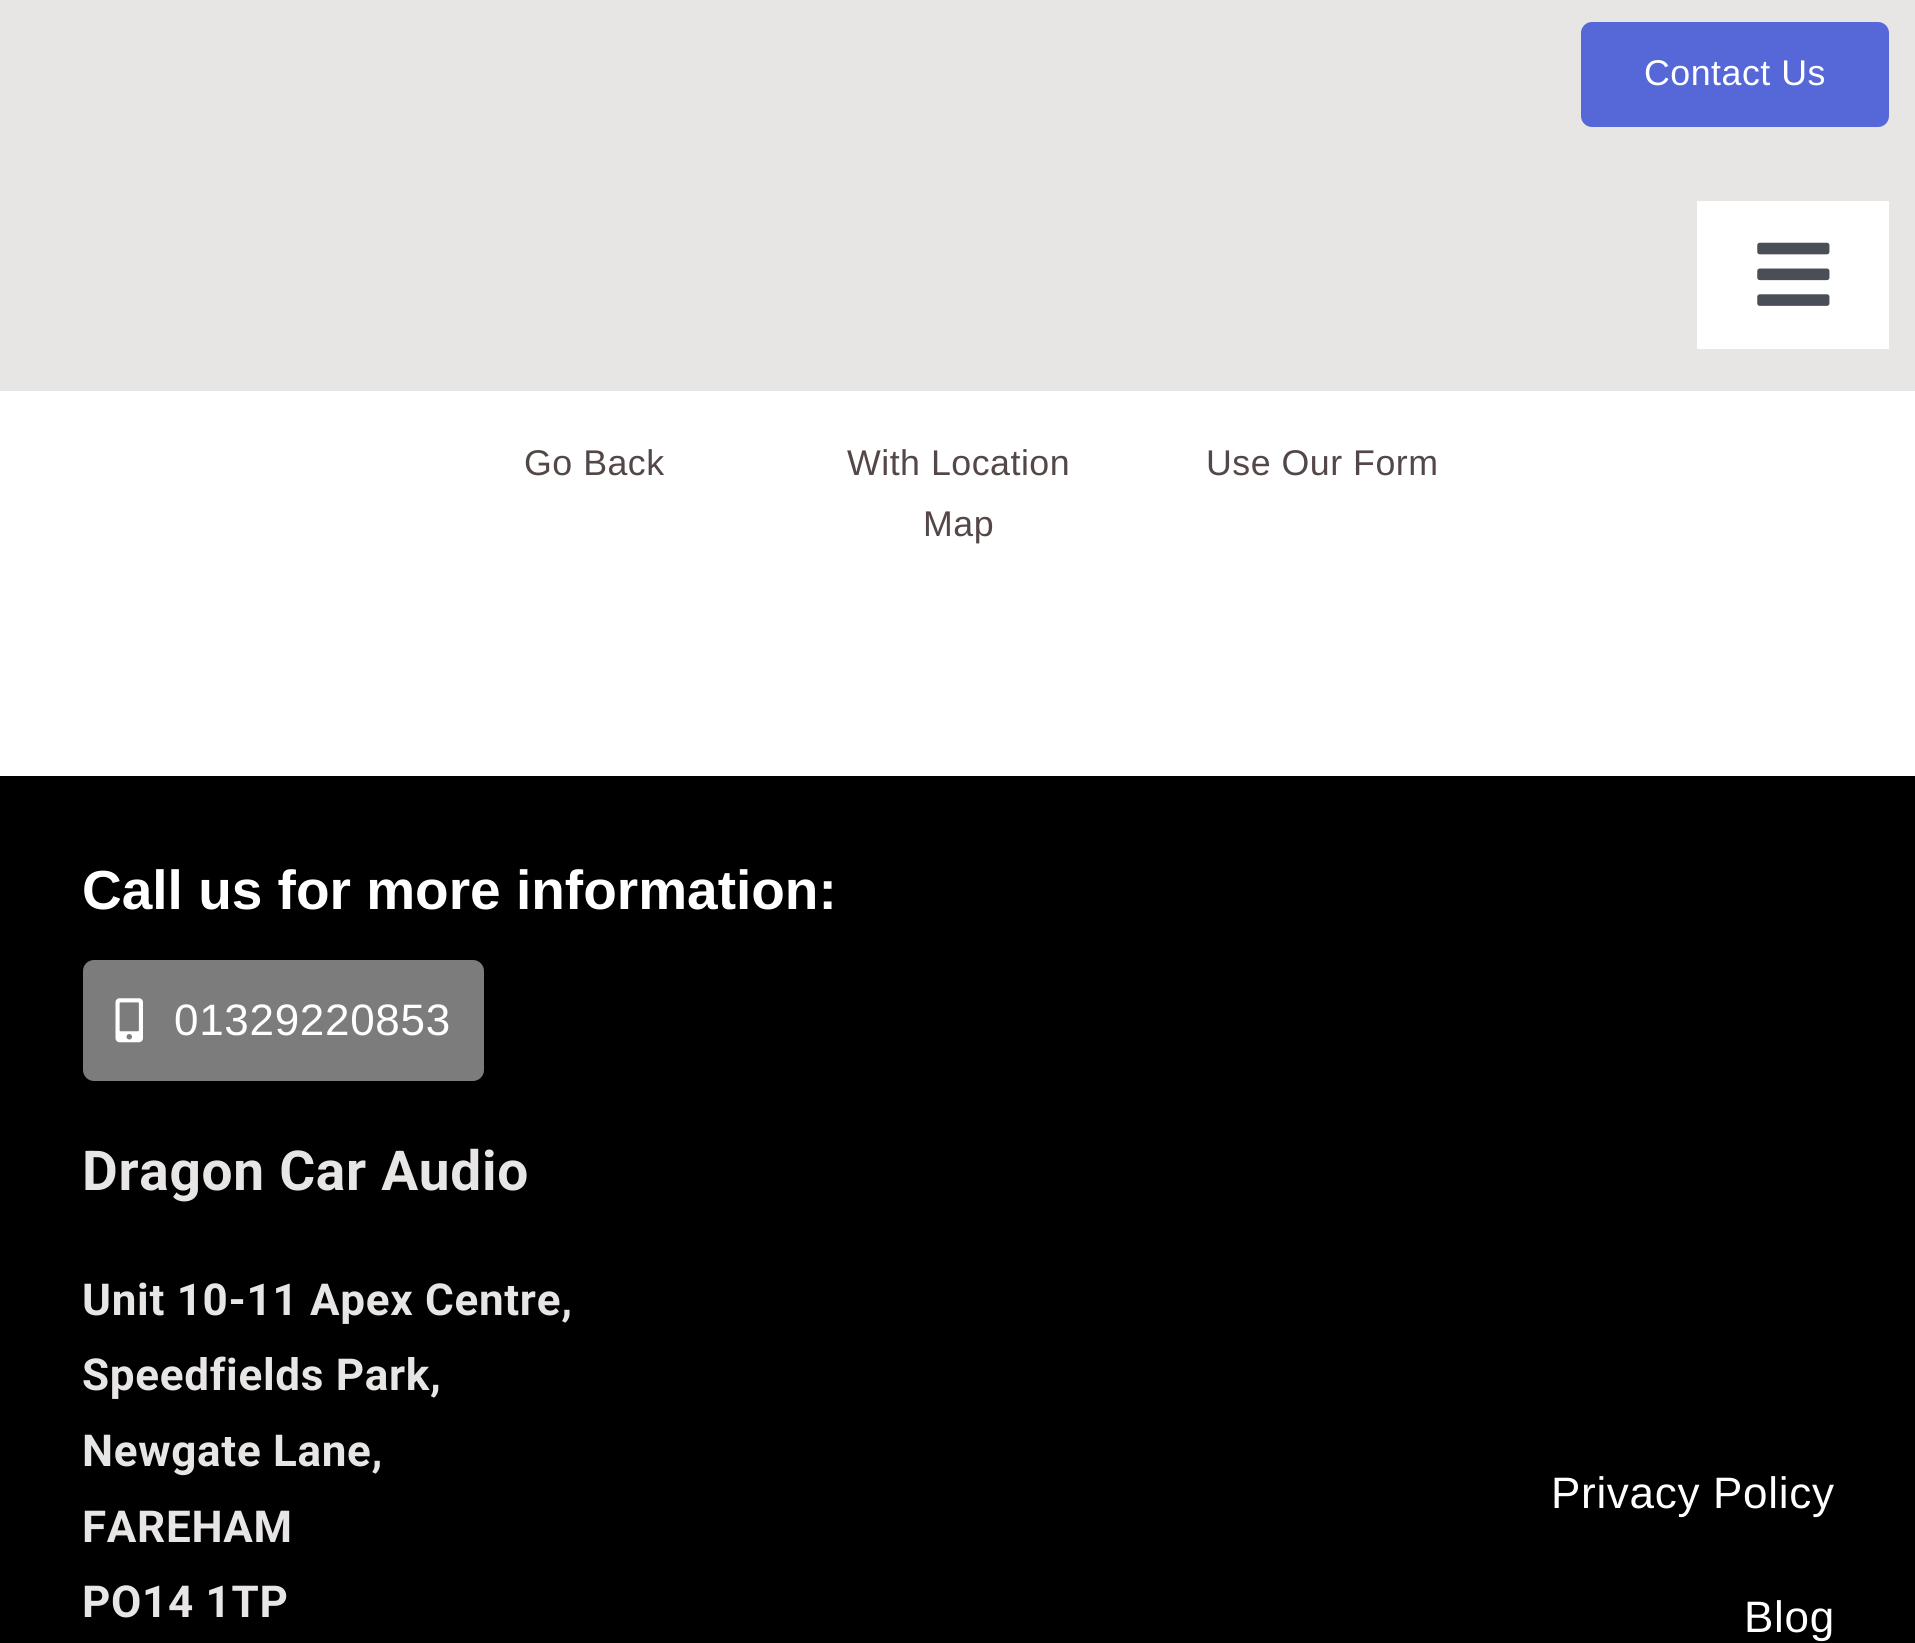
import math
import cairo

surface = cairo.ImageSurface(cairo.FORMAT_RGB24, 1915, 1643)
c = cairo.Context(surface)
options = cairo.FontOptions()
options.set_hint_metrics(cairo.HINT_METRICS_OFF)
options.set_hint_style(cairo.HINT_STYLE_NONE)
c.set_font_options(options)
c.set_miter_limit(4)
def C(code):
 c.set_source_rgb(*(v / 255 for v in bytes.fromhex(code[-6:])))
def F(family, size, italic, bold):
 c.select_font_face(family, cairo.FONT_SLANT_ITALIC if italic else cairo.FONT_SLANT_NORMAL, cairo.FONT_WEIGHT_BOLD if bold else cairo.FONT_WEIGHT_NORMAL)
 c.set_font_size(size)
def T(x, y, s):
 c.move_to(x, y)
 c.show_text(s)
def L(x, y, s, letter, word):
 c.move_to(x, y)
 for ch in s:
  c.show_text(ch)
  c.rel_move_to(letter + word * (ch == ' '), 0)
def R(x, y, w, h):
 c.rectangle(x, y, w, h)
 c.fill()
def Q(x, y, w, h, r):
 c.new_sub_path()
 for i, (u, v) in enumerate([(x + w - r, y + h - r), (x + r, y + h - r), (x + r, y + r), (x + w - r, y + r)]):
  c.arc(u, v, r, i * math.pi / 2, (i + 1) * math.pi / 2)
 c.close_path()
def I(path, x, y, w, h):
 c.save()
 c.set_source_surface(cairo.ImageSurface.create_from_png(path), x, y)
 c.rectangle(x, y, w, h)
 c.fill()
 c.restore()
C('ffffff')
c.paint()
C('e8e5e5')
R(0,0,1915,391)
C('5668d7')
Q(1581,22,308,105,11)
c.fill()
F('Liberation Sans',35.75,0,0)
C('ffffff')
L(1644,85,'Contact Us',.5,0)
R(1697,201,192,148)
I('1.png',1757,242,73,64)
C('544747')
L(524,475,'Go Back',.5,0)
L(847,475,'With Location',.5,0)
L(923,536,'Map',.5,0)
L(1206,475,'Use Our Form',.5,0)
C('000000')
R(0,776,1915,867)
F('Liberation Sans',55,0,1)
C('ffffff')
T(82,909,'Call us for more information:')
C('7c7c7c')
Q(83,960,401,121,11)
c.fill()
I('2.png',115,998,28,45)
F('Liberation Sans',44,0,0)
C('ffffff')
L(174,1035,'01329220853',.7,0)
F('Roboto',55,0,1)
C('e8e5e5')
L(82,1190,'Dragon Car Audio',.7,0)
F('Roboto',44,0,1)
L(82,1315,'Unit 10-11 Apex Centre,',.7,0)
L(82,1390,'Speedfields Park,',.7,0)
L(82,1466,'Newgate Lane,',.7,0)
L(82,1542,'FAREHAM',.7,0)
L(82,1617,'PO14 1TP',.7,0)
F('Liberation Sans',44,0,0)
C('ffffff')
L(1551,1508,'Privacy Policy',.7,0)
L(1744,1632,'Blog',.7,0)
surface.write_to_png('o.png')
